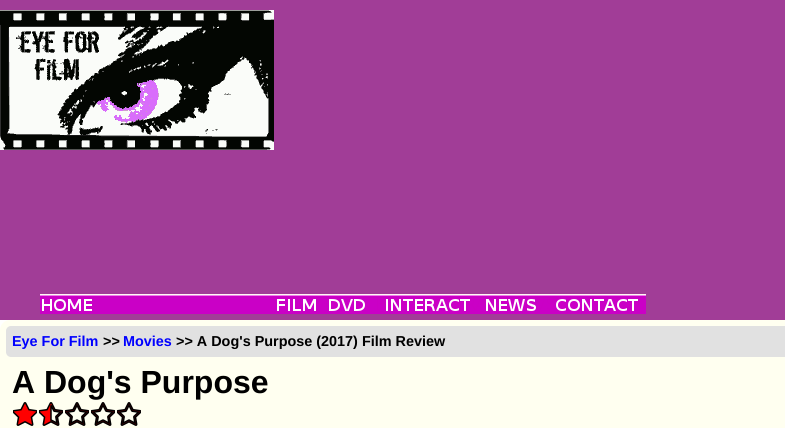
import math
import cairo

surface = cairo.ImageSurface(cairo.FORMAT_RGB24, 785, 428)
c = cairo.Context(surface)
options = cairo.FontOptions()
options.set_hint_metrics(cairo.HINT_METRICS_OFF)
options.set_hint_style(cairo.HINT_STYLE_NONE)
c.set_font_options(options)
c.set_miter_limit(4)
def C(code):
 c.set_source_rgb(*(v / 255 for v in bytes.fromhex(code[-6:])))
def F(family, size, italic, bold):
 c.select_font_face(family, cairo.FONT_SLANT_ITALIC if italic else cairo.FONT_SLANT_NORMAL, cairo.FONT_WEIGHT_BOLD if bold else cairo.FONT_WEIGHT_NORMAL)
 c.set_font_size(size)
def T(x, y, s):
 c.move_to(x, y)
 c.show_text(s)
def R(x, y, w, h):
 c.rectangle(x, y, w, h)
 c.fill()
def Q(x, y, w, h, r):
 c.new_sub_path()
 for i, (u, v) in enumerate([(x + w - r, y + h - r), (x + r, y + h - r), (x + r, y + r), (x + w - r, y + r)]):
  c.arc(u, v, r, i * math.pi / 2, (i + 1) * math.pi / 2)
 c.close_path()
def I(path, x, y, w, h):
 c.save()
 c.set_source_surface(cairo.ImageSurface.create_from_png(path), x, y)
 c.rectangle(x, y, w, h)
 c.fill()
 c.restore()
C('a13d97')
c.paint()
C('ffffff')
R(0,320,10,10)
I('1.png',0,10,274,140)
I('2.png',40,294,56,20)
I('3.png',96,294,177,20)
I('4.png',273,294,51,20)
I('5.png',324,294,55,20)
I('6.png',379,294,101,20)
I('7.png',480,294,70,20)
I('8.png',550,294,96,20)
C('fffff0')
Q(0,320,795,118,10)
c.fill()
C('e1e1e1')
Q(6,326,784,31,5)
c.fill()
F('Liberation Sans',14.4,0,1)
C('0000ff')
T(12,346,'Eye For Film')
C('000000')
T(103,346,'>>')
C('0000ff')
T(123,346,'Movies')
C('000000')
T(176,346,'>> A Dog\'s Purpose (2017) Film Review')
F('Liberation Sans',32,0,1)
T(12,393,'A Dog\'s Purpose')
I('9.png',13,402,24,24)
I('10.png',39,402,24,24)
I('11.png',65,402,24,24)
I('11.png',91,402,24,24)
I('11.png',117,402,24,24)
surface.write_to_png('o.png')
